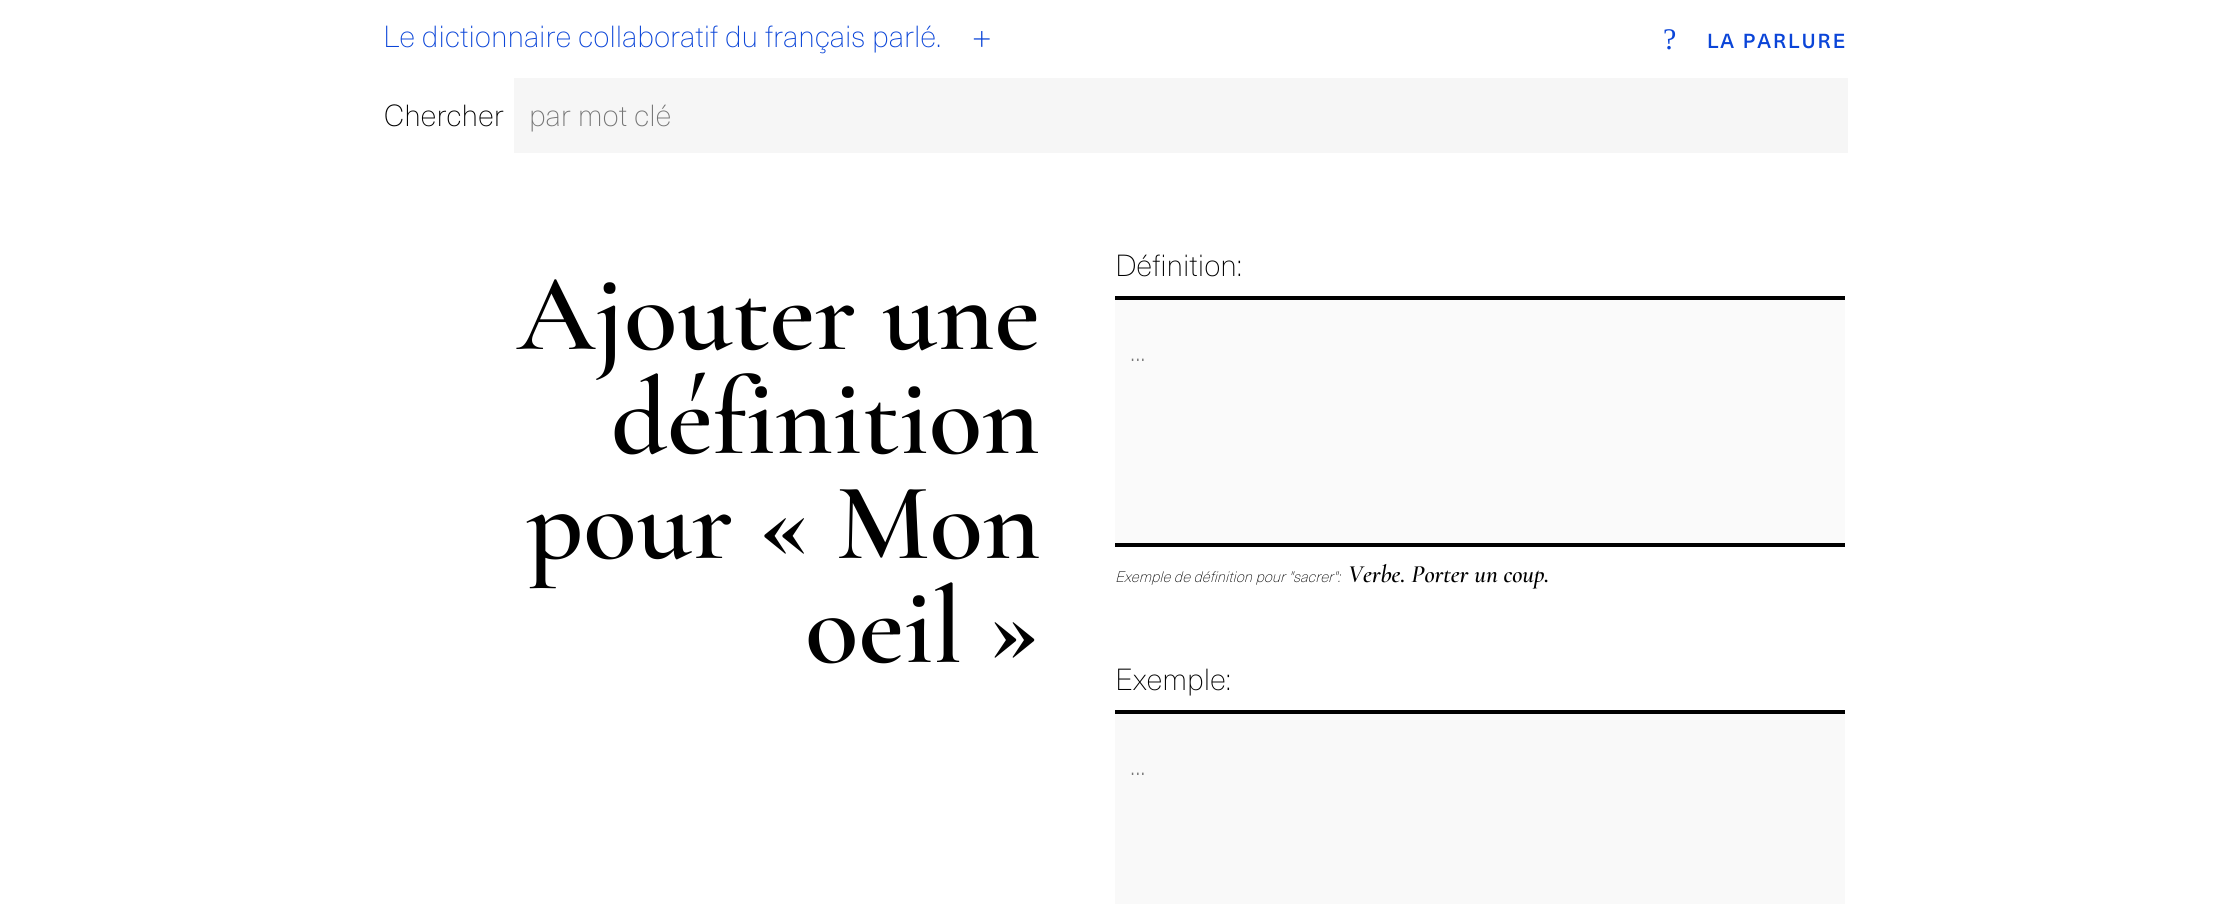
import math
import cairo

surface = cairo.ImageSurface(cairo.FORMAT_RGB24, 2229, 904)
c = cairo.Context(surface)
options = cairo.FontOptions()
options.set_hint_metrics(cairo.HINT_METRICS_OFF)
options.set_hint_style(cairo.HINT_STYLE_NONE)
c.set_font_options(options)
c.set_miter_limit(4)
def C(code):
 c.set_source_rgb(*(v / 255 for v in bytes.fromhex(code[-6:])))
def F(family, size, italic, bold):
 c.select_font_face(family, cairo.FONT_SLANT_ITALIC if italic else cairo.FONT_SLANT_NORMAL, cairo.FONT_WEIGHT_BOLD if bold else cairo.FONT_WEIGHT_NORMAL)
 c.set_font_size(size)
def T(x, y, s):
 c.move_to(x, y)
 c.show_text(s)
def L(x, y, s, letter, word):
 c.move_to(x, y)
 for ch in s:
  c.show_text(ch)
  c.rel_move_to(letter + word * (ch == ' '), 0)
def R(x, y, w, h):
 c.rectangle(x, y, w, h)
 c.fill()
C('ffffff')
c.paint()
F('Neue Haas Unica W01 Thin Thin',30,0,0)
C('0b45d8')
T(383,47,'Le dictionnaire collaboratif du français parlé.')
F('Neue Haas Unica W01 Thin Thin',38,0,0)
L(971,51,'+',1,0)
F('Liberation Serif',30,0,0)
L(1663,49,'?',1,0)
F('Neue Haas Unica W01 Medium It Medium',20,0,0)
L(1707,48,'LA PARLURE',2,0)
F('Neue Haas Unica W01 Thin Thin',30,0,0)
C('000000')
T(384,126,'Chercher')
C('f6f6f6')
R(514,78,1334,75)
C('757575')
T(529,126,'par mot clé')
F('Cormorant Garamond SemiBold',110,0,0)
C('000000')
T(517,349,'Ajouter une')
T(611,453,'définition')
T(527,558,'pour « Mon')
T(805,662,'oeil »')
F('Neue Haas Unica W01 Thin Thin',30,0,0)
T(1115,276,'Définition:')
C('fafafa')
R(1115,300,730,243)
C('000000')
R(1115,296,730,4)
R(1115,543,730,4)
C('757575')
T(1130,361,'...')
F('Neue Haas Unica W01 Thin Thin',15,1,0)
C('000000')
T(1115,582,'Exemple de définition pour "sacrer":')
F('Cormorant Garamond SemiBold',25,1,0)
T(1348,582,'Verbe. Porter un coup.')
F('Neue Haas Unica W01 Thin Thin',30,0,0)
T(1115,690,'Exemple:')
C('f9f9f9')
R(1115,714,730,190)
C('000000')
R(1115,710,730,4)
C('757575')
T(1130,775,'...')
surface.write_to_png('o.png')
